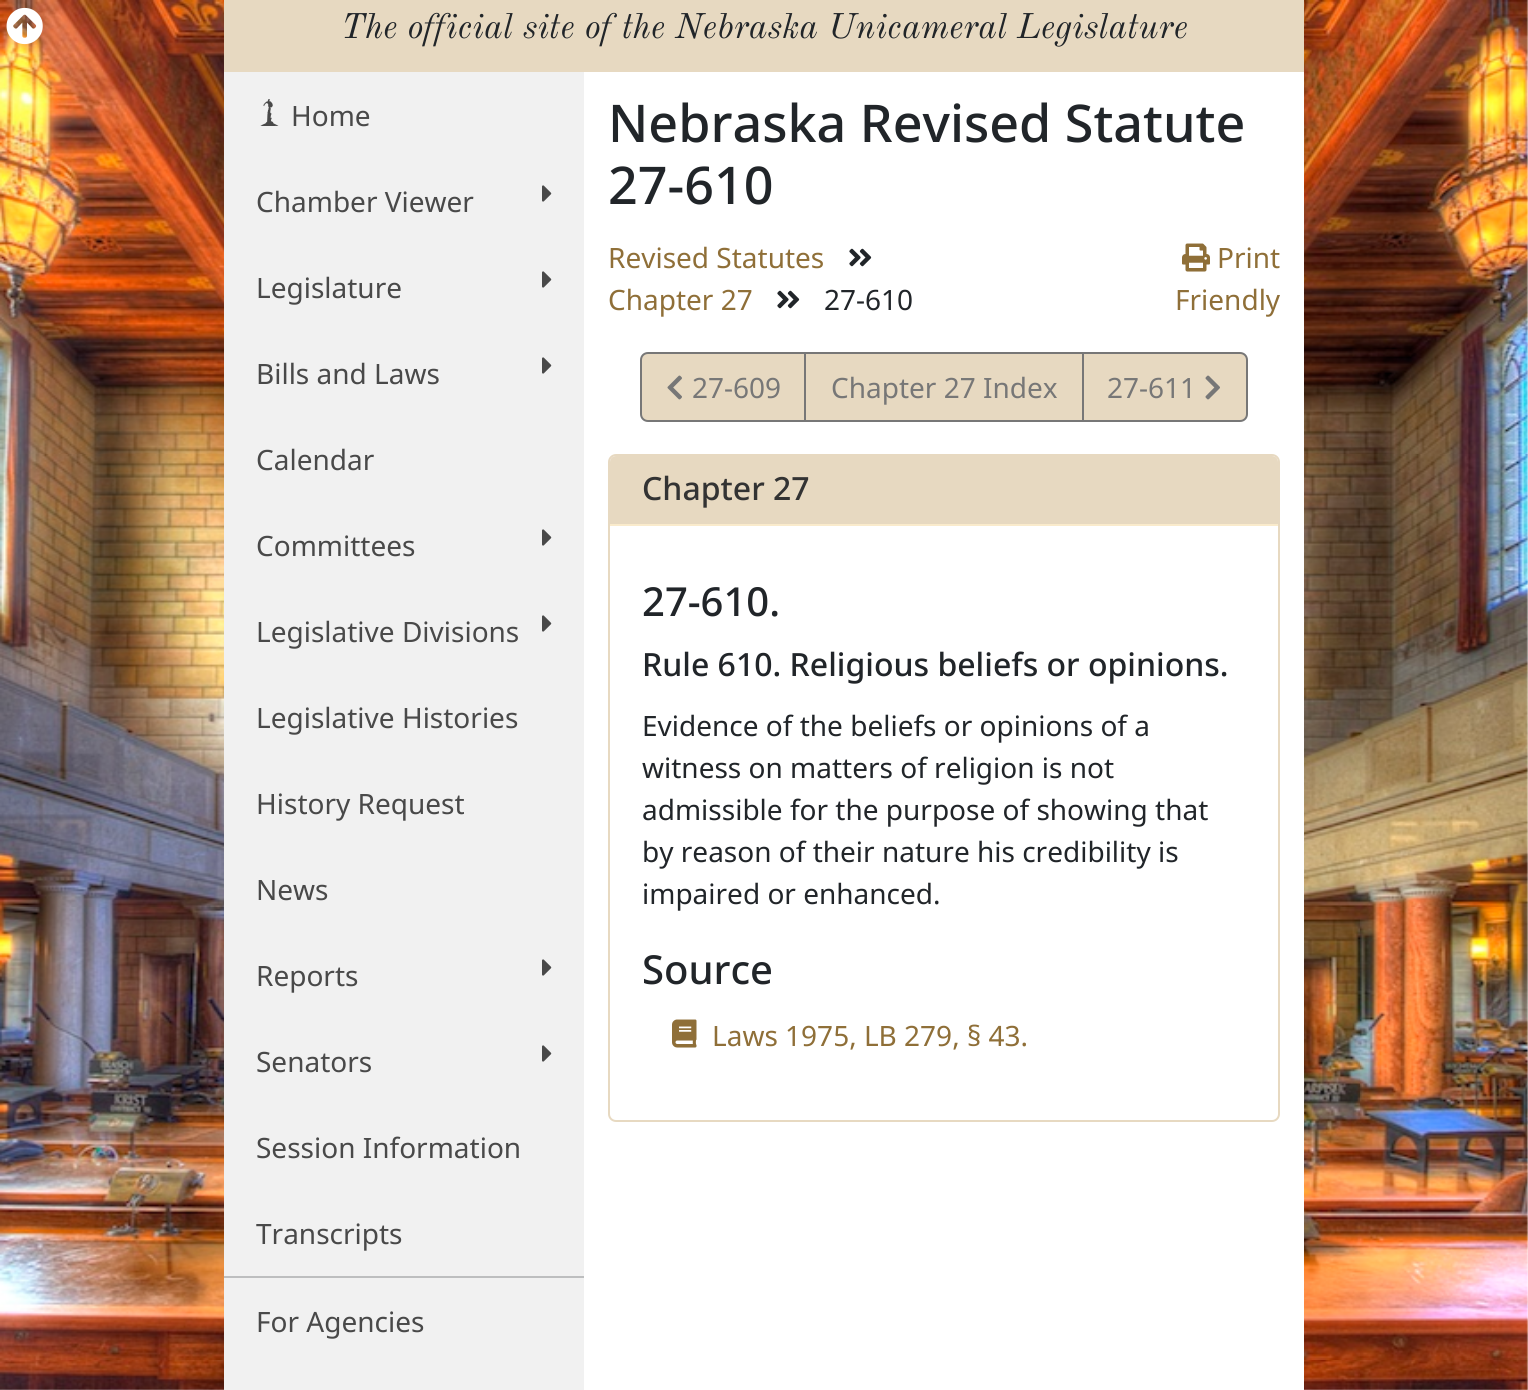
import math
import cairo

surface = cairo.ImageSurface(cairo.FORMAT_RGB24, 1528, 1390)
c = cairo.Context(surface)
options = cairo.FontOptions()
options.set_hint_metrics(cairo.HINT_METRICS_OFF)
options.set_hint_style(cairo.HINT_STYLE_NONE)
c.set_font_options(options)
c.set_miter_limit(4)
def C(code):
 c.set_source_rgb(*(v / 255 for v in bytes.fromhex(code[-6:])))
def F(family, size, italic, bold):
 c.select_font_face(family, cairo.FONT_SLANT_ITALIC if italic else cairo.FONT_SLANT_NORMAL, cairo.FONT_WEIGHT_BOLD if bold else cairo.FONT_WEIGHT_NORMAL)
 c.set_font_size(size)
def T(x, y, s):
 c.move_to(x, y)
 c.show_text(s)
def R(x, y, w, h):
 c.rectangle(x, y, w, h)
 c.fill()
def Q(x, y, w, h, r):
 c.new_sub_path()
 for i, (u, v) in enumerate([(x + w - r, y + h - r), (x + r, y + h - r), (x + r, y + r), (x + w - r, y + r)]):
  c.arc(u, v, r, i * math.pi / 2, (i + 1) * math.pi / 2)
 c.close_path()
def I(path, x, y, w, h):
 c.save()
 c.set_source_surface(cairo.ImageSurface.create_from_png(path), x, y)
 c.rectangle(x, y, w, h)
 c.fill()
 c.restore()
C('ffffff')
c.paint()
I('1.png',0,0,1528,1390)
I('2.png',6,7,37,38)
C('ffffff')
R(584,72,720,1318)
C('e7d9c1')
R(224,0,1080,72)
F('Old Standard TT',35,1,0)
C('212529')
T(341,38,'The official site of the Nebraska Unicameral Legislature')
C('f1f1f1')
R(224,72,360,1318)
I('3.png',260,99,19,27)
F('Noto Sans',28,0,0)
C('494949')
T(291,126,'Home')
T(256,212,'Chamber Viewer')
I('4.png',542,185,10,17)
T(256,298,'Legislature')
I('4.png',542,271,10,17)
T(256,384,'Bills and Laws')
I('4.png',542,357,10,17)
T(256,470,'Calendar')
T(256,556,'Committees')
I('4.png',542,529,10,17)
T(256,642,'Legislative Divisions')
I('4.png',542,615,10,17)
T(256,728,'Legislative Histories')
T(256,814,'History Request')
T(256,900,'News')
T(256,986,'Reports')
I('4.png',542,959,10,17)
T(256,1072,'Senators')
I('4.png',542,1045,10,17)
T(256,1158,'Session Information')
T(256,1244,'Transcripts')
C('bdbebf')
R(224,1276,360,2)
C('494949')
T(256,1332,'For Agencies')
F('Noto Sans Medium',52,0,0)
C('212529')
T(608,142,'Nebraska Revised Statute')
T(608,204,'27-610')
F('Noto Sans',28,0,0)
C('8f6f38')
T(608,268,'Revised Statutes')
I('5.png',849,248,23,19)
T(608,310,'Chapter 27')
I('5.png',777,290,23,19)
C('212529')
T(824,310,'27-610')
I('6.png',1182,243,28,29)
C('8f6f38')
T(1217,268,'Print')
T(1175,310,'Friendly')
C('e7d9c1')
c.new_path()
c.move_to(648,353)
c.line_to(805,353)
c.line_to(805,421)
c.line_to(648,421)
c.curve_to(644,421,641,418,641,414)
c.line_to(641,360)
c.curve_to(641,356,644,353,648,353)
c.close_path()
c.fill_preserve()
C('777777')
c.stroke()
I('7.png',667,375,15,25)
T(692,398,'27-609')
C('e7d9c1')
c.rectangle(805,353,278,68)
c.fill_preserve()
C('777777')
c.stroke()
T(831,398,'Chapter 27 Index')
C('e7d9c1')
c.new_path()
c.move_to(1083,353)
c.line_to(1240,353)
c.curve_to(1244,353,1247,356,1247,360)
c.line_to(1247,414)
c.curve_to(1247,418,1244,421,1240,421)
c.line_to(1083,421)
c.close_path()
c.fill_preserve()
C('777777')
c.stroke()
T(1107,398,'27-611')
I('8.png',1205,375,15,25)
Q(609,455,670,666,7)
C('e7d9c1')
c.stroke()
c.new_path()
c.move_to(616,456)
c.line_to(1272,456)
c.curve_to(1275.5,456,1278,458.5,1278,462)
c.line_to(1278,526)
c.line_to(610,526)
c.line_to(610,462)
c.curve_to(610,458.5,612.5,456,616,456)
c.close_path()
c.fill()
C('faebcc')
R(610,524,668,2)
F('Noto Sans Medium',32,0,0)
C('333333')
T(642,500,'Chapter 27')
F('Noto Sans Medium',40,0,0)
C('212529')
T(642,616,'27-610.')
F('Noto Sans Medium',32,0,0)
T(642,676,'Rule 610. Religious beliefs or opinions.')
F('Noto Sans',28,0,0)
T(642,736,'Evidence of the beliefs or opinions of a')
T(642,778,'witness on matters of religion is not')
T(642,820,'admissible for the purpose of showing that')
T(642,862,'by reason of their nature his credibility is')
T(642,904,'impaired or enhanced.')
F('Noto Sans Medium',40,0,0)
T(642,984,'Source')
I('9.png',672,1019,25,29)
F('Noto Sans',28,0,0)
C('8f6f38')
T(712,1046,'Laws 1975, LB 279, § 43.')
surface.write_to_png('o.png')
